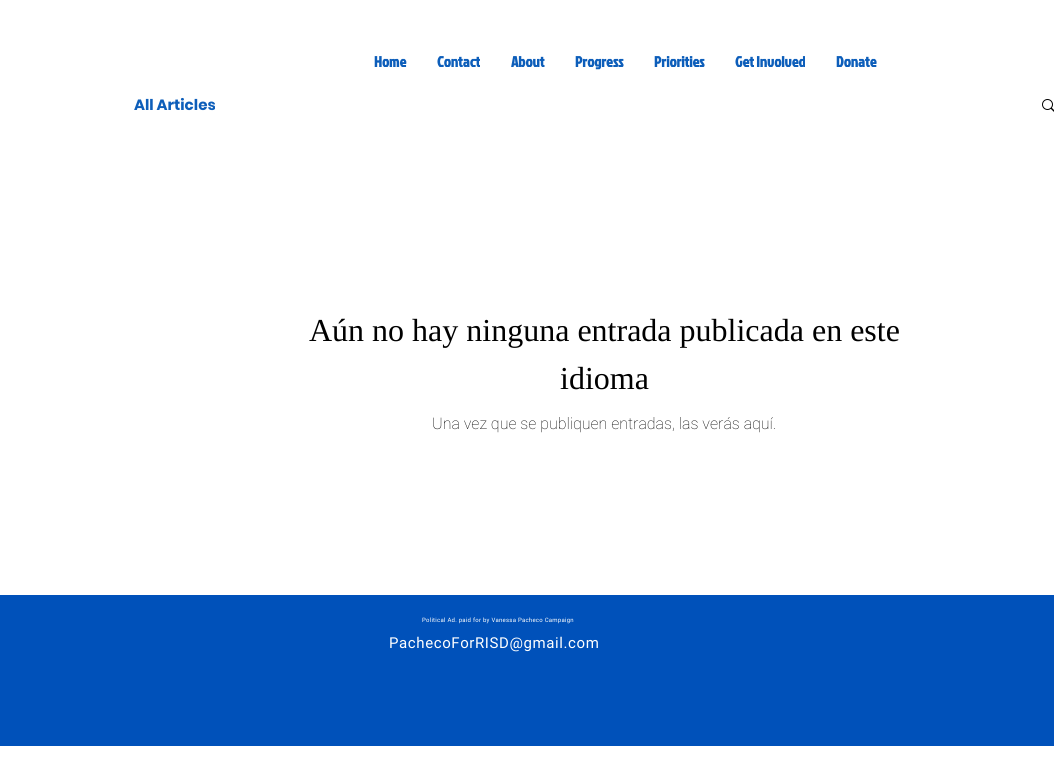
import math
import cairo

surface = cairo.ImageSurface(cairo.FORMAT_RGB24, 1054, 781)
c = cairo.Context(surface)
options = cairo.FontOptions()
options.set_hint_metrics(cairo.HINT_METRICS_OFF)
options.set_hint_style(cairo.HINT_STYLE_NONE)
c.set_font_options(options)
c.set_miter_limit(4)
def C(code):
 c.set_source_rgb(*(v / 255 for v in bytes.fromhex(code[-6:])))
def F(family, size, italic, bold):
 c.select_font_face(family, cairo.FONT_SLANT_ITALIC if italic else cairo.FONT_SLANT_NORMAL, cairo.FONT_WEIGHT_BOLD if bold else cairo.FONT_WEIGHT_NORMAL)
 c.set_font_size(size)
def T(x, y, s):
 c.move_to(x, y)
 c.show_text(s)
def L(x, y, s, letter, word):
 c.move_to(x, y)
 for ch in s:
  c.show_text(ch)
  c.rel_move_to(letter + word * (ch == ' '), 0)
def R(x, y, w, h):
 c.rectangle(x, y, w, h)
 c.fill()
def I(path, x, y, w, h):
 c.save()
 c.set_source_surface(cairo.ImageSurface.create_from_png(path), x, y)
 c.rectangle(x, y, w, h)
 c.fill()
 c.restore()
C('ffffff')
c.paint()
F('Jockey One',15,0,1)
C('0d5eba')
T(374,67,'Home')
T(437,67,'Contact')
T(511,67,'About')
T(575,67,'Progress')
T(654,67,'Priorities')
T(735,67,'Get Involved')
T(836,67,'Donate')
F('Poppins',15,0,1)
T(134,110,'All Articles')
I('1.png',1042,99,12,13)
F('Liberation Serif',32,0,0)
C('000000')
T(309,341,'Aún no hay ninguna entrada publicada en este')
T(560,389,'idioma')
F('Roboto Thin',16,0,0)
T(432,429,'Una vez que se publiquen entradas, las verás aquí.')
C('0051ba')
R(0,595,1054,151)
F('Roboto',6,0,0)
C('ffffff')
L(422,622,'Political Ad. paid for by Vanessa Pacheco Campaign',.25,0)
F('Roboto',15,0,0)
L(389,648,'PachecoForRISD@gmail.com',.6,0)
surface.write_to_png('o.png')
